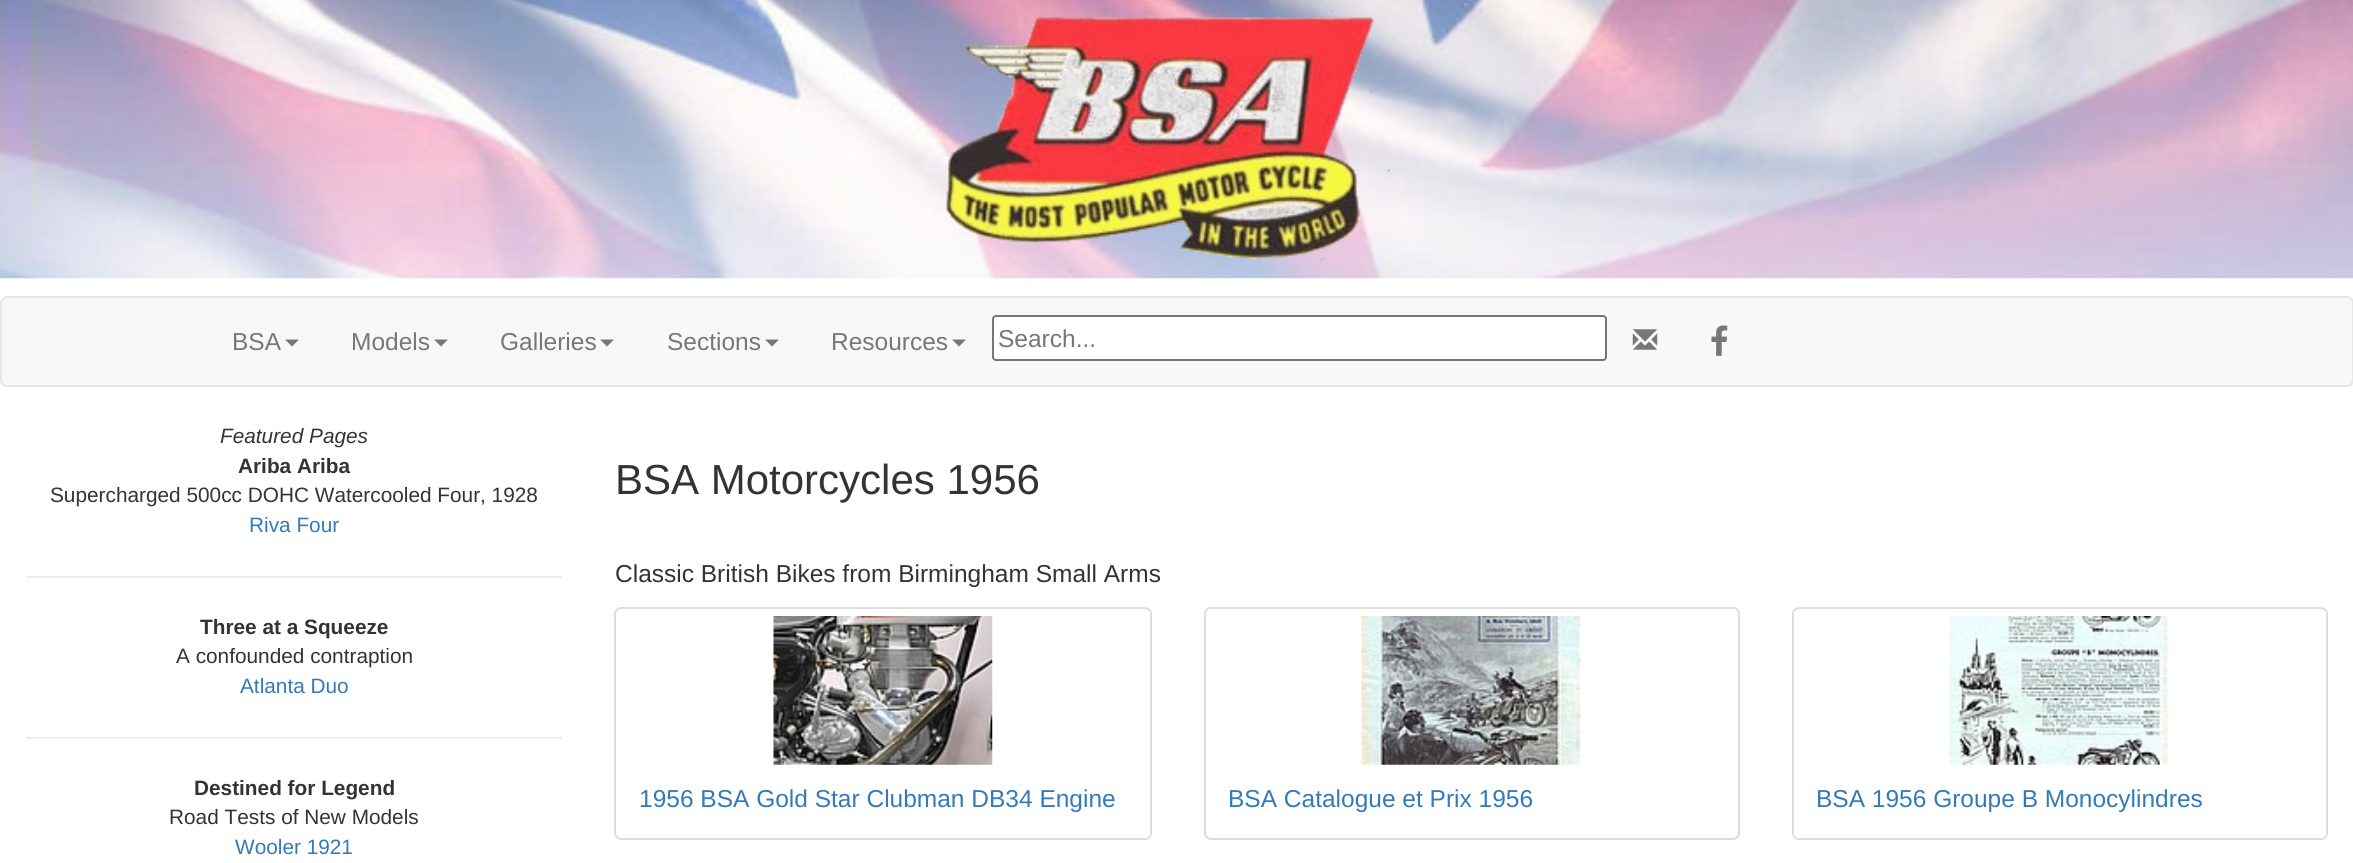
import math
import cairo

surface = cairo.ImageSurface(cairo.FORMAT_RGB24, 2353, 863)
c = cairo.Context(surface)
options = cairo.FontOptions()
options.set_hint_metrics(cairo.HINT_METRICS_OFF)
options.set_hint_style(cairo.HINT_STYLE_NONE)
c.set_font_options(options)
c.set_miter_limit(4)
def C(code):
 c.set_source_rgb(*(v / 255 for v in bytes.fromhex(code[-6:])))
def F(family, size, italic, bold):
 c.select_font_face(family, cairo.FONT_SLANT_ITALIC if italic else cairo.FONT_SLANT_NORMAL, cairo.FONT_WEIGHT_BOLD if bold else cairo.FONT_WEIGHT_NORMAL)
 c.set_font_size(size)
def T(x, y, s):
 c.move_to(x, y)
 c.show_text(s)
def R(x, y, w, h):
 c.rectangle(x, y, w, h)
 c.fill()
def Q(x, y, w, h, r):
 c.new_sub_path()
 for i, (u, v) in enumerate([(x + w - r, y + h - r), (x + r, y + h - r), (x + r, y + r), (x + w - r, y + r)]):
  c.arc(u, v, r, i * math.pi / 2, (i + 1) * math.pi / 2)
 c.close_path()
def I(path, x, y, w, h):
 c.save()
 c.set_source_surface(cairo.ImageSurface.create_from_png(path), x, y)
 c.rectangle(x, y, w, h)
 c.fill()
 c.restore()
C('ffffff')
c.paint()
I('1.png',0,0,2353,279)
I('2.png',946,0,521,274)
C('f8f8f8')
Q(1,297,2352,89,6)
c.fill_preserve()
C('e7e7e7')
c.stroke()
F('Liberation Sans',24.5,0,0)
C('777777')
T(232,350,'BSA')
c.new_path()
c.move_to(285,339.5)
c.line_to(299,339.5)
c.line_to(292,346.5)
c.close_path()
c.fill()
T(351,350,'Models')
c.new_path()
c.move_to(434,339.5)
c.line_to(448,339.5)
c.line_to(441,346.5)
c.close_path()
c.fill()
T(500,350,'Galleries')
c.new_path()
c.move_to(600,339.5)
c.line_to(614,339.5)
c.line_to(607,346.5)
c.close_path()
c.fill()
T(667,350,'Sections')
c.new_path()
c.move_to(765,339.5)
c.line_to(779,339.5)
c.line_to(772,346.5)
c.close_path()
c.fill()
T(831,350,'Resources')
c.new_path()
c.move_to(952,339.5)
c.line_to(966,339.5)
c.line_to(959,346.5)
c.close_path()
c.fill()
C('ffffff')
Q(993,316,613,44,3)
c.fill_preserve()
C('767676')
c.stroke()
C('777777')
T(998,347,'Search...')
I('3.png',1632,329,26,21)
I('4.png',1711,325,17,31)
F('Liberation Sans',20.8,1,0)
C('333333')
T(220,443,'Featured Pages')
F('Liberation Sans',20.8,0,1)
T(238,473,'Ariba Ariba')
F('Liberation Sans',20.8,0,0)
T(50,502,'Supercharged 500cc DOHC Watercooled Four, 1928')
C('337ab7')
T(249,532,'Riva Four')
C('eeeeee')
R(26,576,536,2)
F('Liberation Sans',20.8,0,1)
C('333333')
T(200,634,'Three at a Squeeze')
F('Liberation Sans',20.8,0,0)
T(176,663,'A confounded contraption')
C('337ab7')
T(240,693,'Atlanta Duo')
C('eeeeee')
R(26,737,536,2)
F('Liberation Sans',20.8,0,1)
C('333333')
T(194,795,'Destined for Legend')
F('Liberation Sans',20.8,0,0)
T(169,824,'Road Tests of New Models')
C('337ab7')
T(235,854,'Wooler 1921')
F('Liberation Sans',42,0,0)
C('333333')
T(615,494,'BSA Motorcycles 1956')
F('Liberation Sans',24.5,0,0)
T(615,582,'Classic British Bikes from Birmingham Small Arms')
Q(615,608,536,231,6)
C('dddddd')
c.stroke()
I('5.png',773,616,220,149)
C('337ab7')
T(639,807,'1956 BSA Gold Star Clubman DB34 Engine')
Q(1205,608,534,231,6)
C('dddddd')
c.stroke()
I('6.png',1361,616,220,149)
C('337ab7')
T(1228,807,'BSA Catalogue et Prix 1956')
Q(1793,608,534,231,6)
C('dddddd')
c.stroke()
I('7.png',1949,616,220,149)
C('337ab7')
T(1816,807,'BSA 1956 Groupe B Monocylindres')
surface.write_to_png('o.png')
